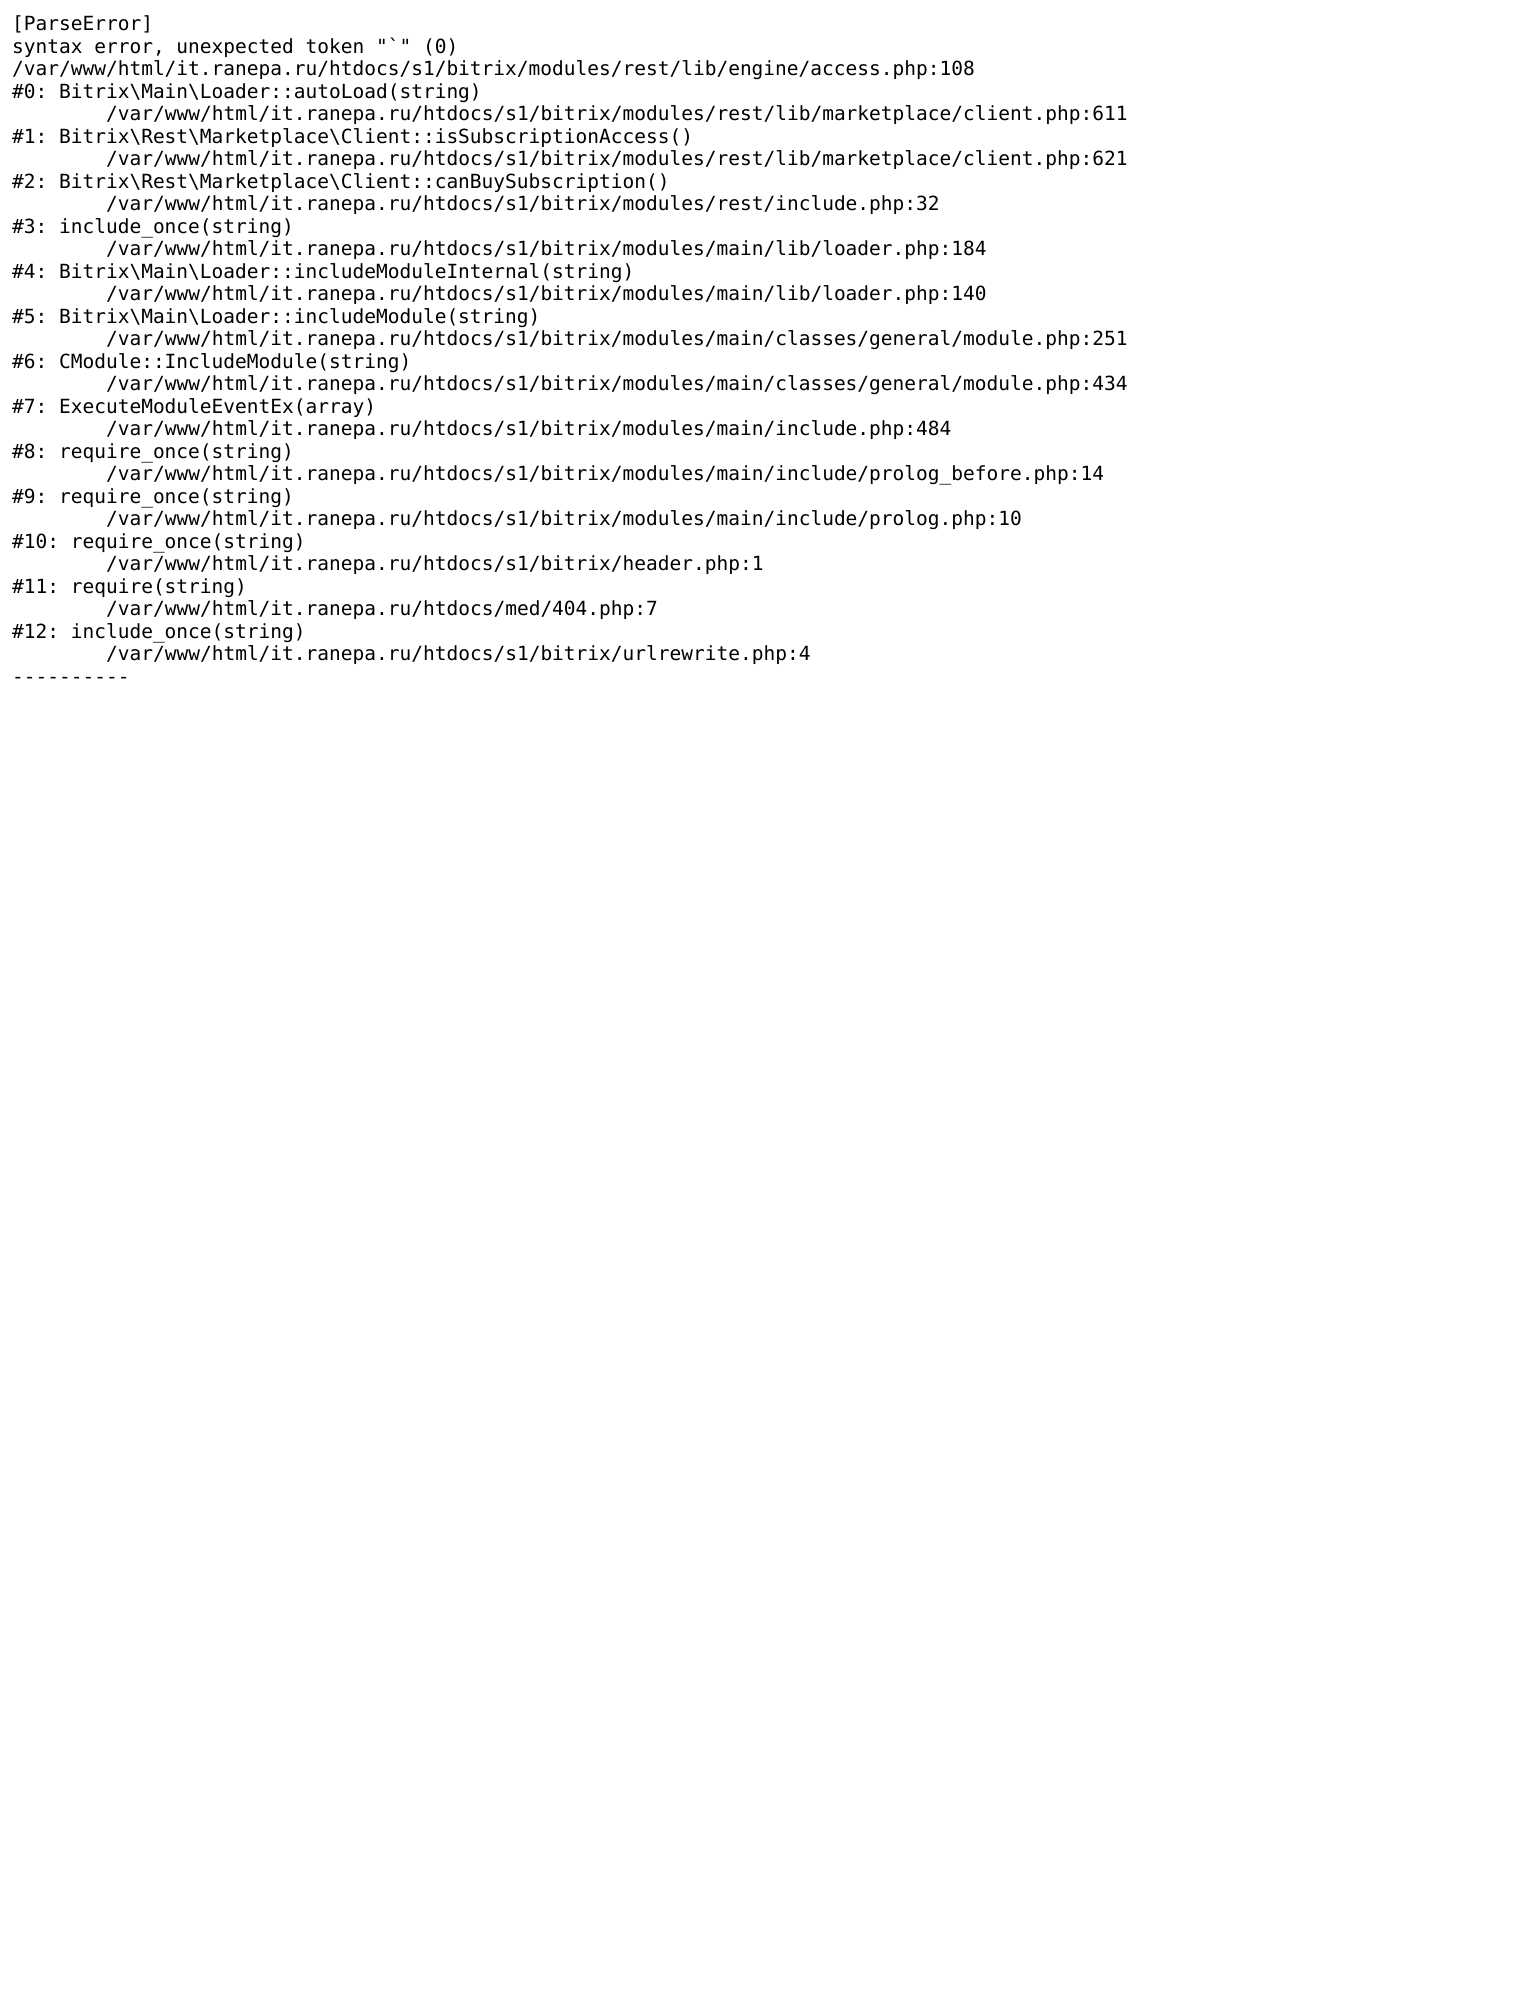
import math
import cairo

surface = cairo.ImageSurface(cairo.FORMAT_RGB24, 1534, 2011)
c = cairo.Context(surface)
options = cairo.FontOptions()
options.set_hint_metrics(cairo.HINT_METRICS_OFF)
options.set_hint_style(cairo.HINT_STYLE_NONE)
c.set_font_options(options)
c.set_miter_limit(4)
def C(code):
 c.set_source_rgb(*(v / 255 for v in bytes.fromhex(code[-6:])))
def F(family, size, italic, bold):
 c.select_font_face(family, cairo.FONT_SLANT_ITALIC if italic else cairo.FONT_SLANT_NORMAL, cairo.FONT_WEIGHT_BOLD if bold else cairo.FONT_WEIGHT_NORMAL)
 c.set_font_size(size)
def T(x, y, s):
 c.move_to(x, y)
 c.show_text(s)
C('ffffff')
c.paint()
F('DejaVu Sans Mono',19.5,0,0)
C('000000')
T(12,30,'[ParseError]')
T(12,53,'syntax error, unexpected token "`" (0)')
T(12,75,'/var/www/html/it.ranepa.ru/htdocs/s1/bitrix/modules/rest/lib/engine/access.php:108')
T(12,98,'#0: Bitrix\\Main\\Loader::autoLoad(string)')
T(106,120,'/var/www/html/it.ranepa.ru/htdocs/s1/bitrix/modules/rest/lib/marketplace/client.php:611')
T(12,143,'#1: Bitrix\\Rest\\Marketplace\\Client::isSubscriptionAccess()')
T(106,165,'/var/www/html/it.ranepa.ru/htdocs/s1/bitrix/modules/rest/lib/marketplace/client.php:621')
T(12,188,'#2: Bitrix\\Rest\\Marketplace\\Client::canBuySubscription()')
T(106,210,'/var/www/html/it.ranepa.ru/htdocs/s1/bitrix/modules/rest/include.php:32')
T(12,233,'#3: include_once(string)')
T(106,255,'/var/www/html/it.ranepa.ru/htdocs/s1/bitrix/modules/main/lib/loader.php:184')
T(12,278,'#4: Bitrix\\Main\\Loader::includeModuleInternal(string)')
T(106,300,'/var/www/html/it.ranepa.ru/htdocs/s1/bitrix/modules/main/lib/loader.php:140')
T(12,323,'#5: Bitrix\\Main\\Loader::includeModule(string)')
T(106,345,'/var/www/html/it.ranepa.ru/htdocs/s1/bitrix/modules/main/classes/general/module.php:251')
T(12,368,'#6: CModule::IncludeModule(string)')
T(106,390,'/var/www/html/it.ranepa.ru/htdocs/s1/bitrix/modules/main/classes/general/module.php:434')
T(12,413,'#7: ExecuteModuleEventEx(array)')
T(106,435,'/var/www/html/it.ranepa.ru/htdocs/s1/bitrix/modules/main/include.php:484')
T(12,458,'#8: require_once(string)')
T(106,480,'/var/www/html/it.ranepa.ru/htdocs/s1/bitrix/modules/main/include/prolog_before.php:14')
T(12,503,'#9: require_once(string)')
T(106,525,'/var/www/html/it.ranepa.ru/htdocs/s1/bitrix/modules/main/include/prolog.php:10')
T(12,548,'#10: require_once(string)')
T(106,570,'/var/www/html/it.ranepa.ru/htdocs/s1/bitrix/header.php:1')
T(12,593,'#11: require(string)')
T(106,615,'/var/www/html/it.ranepa.ru/htdocs/med/404.php:7')
T(12,638,'#12: include_once(string)')
T(106,660,'/var/www/html/it.ranepa.ru/htdocs/s1/bitrix/urlrewrite.php:4')
T(12,683,'----------')
surface.write_to_png('o.png')
